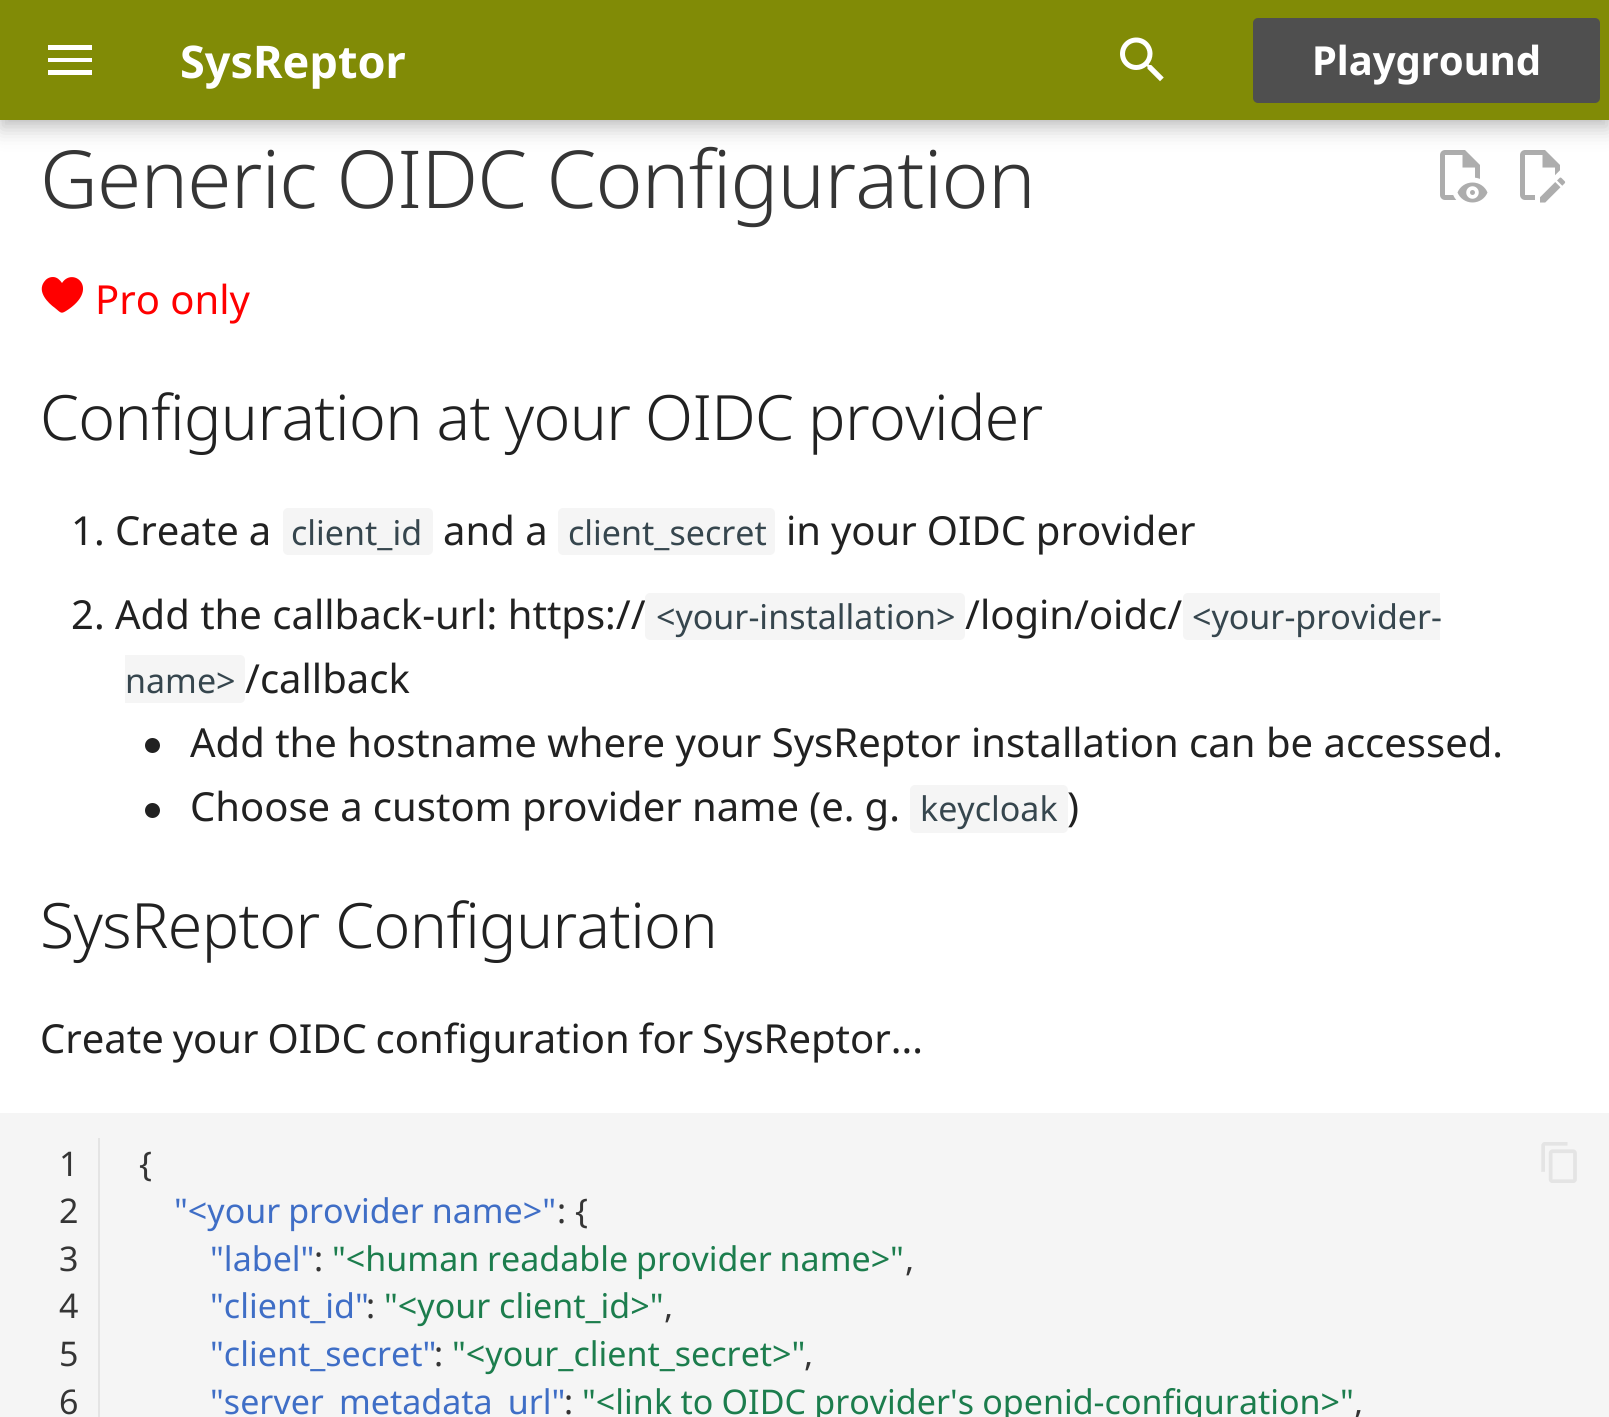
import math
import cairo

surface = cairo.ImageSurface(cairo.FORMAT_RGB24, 1609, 1417)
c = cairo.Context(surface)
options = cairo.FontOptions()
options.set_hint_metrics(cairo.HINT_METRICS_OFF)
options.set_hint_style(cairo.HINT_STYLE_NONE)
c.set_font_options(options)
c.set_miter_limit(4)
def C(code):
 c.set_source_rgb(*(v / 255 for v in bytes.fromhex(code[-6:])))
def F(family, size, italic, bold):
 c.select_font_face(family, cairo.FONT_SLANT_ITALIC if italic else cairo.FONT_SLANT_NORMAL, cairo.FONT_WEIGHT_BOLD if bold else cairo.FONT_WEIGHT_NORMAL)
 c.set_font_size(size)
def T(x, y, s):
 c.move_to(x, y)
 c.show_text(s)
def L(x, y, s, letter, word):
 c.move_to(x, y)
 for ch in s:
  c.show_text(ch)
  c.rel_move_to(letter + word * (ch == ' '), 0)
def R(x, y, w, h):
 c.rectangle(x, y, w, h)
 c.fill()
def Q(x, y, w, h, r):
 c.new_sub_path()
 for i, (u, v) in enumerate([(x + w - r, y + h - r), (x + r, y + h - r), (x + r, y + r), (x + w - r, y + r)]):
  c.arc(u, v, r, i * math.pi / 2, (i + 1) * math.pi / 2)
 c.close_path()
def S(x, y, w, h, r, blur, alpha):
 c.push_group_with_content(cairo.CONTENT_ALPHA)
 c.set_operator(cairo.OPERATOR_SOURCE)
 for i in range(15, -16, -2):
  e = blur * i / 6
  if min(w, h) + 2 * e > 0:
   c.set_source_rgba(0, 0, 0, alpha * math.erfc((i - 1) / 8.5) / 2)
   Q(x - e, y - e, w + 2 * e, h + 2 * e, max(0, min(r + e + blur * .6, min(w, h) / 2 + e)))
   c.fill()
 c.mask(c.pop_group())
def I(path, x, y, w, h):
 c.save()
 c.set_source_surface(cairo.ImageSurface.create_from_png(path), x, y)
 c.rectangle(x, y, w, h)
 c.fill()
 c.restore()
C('ffffff')
c.paint()
I('2.png',1440,150,48,53)
I('3.png',1520,150,46,53)
C('000000')
S(0,10,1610,120,0,10,.2)
S(0,0,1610,120,0,5,.1)
C('818b06')
R(0,0,1609,120)
C('ffffff')
c.new_path()
c.move_to(48,45)
c.line_to(92,45)
c.line_to(92,50)
c.line_to(48,50)
c.close_path()
c.move_to(48,58)
c.line_to(92,58)
c.line_to(92,62)
c.line_to(48,62)
c.close_path()
c.move_to(48,70)
c.line_to(92,70)
c.line_to(92,75)
c.line_to(48,75)
c.close_path()
c.fill()
F('Noto Sans',45,0,1)
T(180,78,'SysReptor')
I('1.png',1120,37,44,45)
C('4f4f4f')
Q(1253,18,347,85,5)
c.fill()
F('Noto Sans',40,0,1)
C('ffffff')
T(1312,75,'Playground')
F('Noto Sans Light',80,0,0)
C('353535')
L(40,208,'Generic OIDC Configuration',-.8,0)
C('ff0000')
c.new_path()
c.move_to(66,311)
c.curve_to(61,314,61,313,55,308)
c.curve_to(48,303,37,292,44,282)
c.curve_to(46,279,49,277,53,277)
c.curve_to(57,277,60,280,62,283)
c.curve_to(73,266,101,289,66,311)
c.fill()
F('Noto Sans',40,0,0)
T(95,314,'Pro only')
F('Noto Sans Light',62.5,0,0)
C('212121')
L(40,440,'Configuration at your OIDC provider',-.6,-1)
F('Noto Sans',40,0,0)
T(71,545,'1.')
L(115,545,'Create a',0,-.5)
C('f5f5f5')
Q(283,508,150,47,5)
c.fill()
F('Noto Sans',34,0,0)
C('36464e')
T(291,545,'client_id')
F('Noto Sans',40,0,0)
C('212121')
T(443,545,'and a')
C('f5f5f5')
Q(558,508,217,47,5)
c.fill()
F('Noto Sans',34,0,0)
C('36464e')
T(568,545,'client_secret')
F('Noto Sans',40,0,0)
C('212121')
L(786,545,'in your OIDC provider',0,-.5)
T(71,629,'2. Add the callback-url: https://')
C('f5f5f5')
Q(645,593,320,47,5)
c.fill()
F('Noto Sans',34,0,0)
C('36464e')
T(656,629,'<your-installation>')
F('Noto Sans',40,0,0)
C('212121')
T(965,629,'/login/oidc/')
C('f5f5f5')
c.new_path()
c.move_to(1188,593)
c.line_to(1440,593)
c.line_to(1440,640)
c.line_to(1188,640)
c.curve_to(1185,640,1183,638,1183,635)
c.line_to(1183,598)
c.curve_to(1183,595,1185,593,1188,593)
c.close_path()
c.fill()
F('Noto Sans',34,0,0)
C('36464e')
T(1192,629,'<your-provider-')
C('f5f5f5')
c.new_path()
c.move_to(125,655)
c.line_to(240,655)
c.curve_to(243,655,245,657,245,660)
c.line_to(245,698)
c.curve_to(245,701,243,703,240,703)
c.line_to(125,703)
c.close_path()
c.fill()
C('36464e')
T(125,693,'name>')
F('Noto Sans',40,0,0)
C('212121')
T(245,693,'/callback')
c.new_path()
c.arc(152.5,745.5,7.5,0,2 * math.pi)
c.fill()
T(190,757,'Add the hostname where your SysReptor installation can be accessed.')
c.new_path()
c.arc(152.5,810.5,7.5,0,2 * math.pi)
c.fill()
L(190,821,'Choose a custom provider name (e. g.',0,-.25)
C('f5f5f5')
Q(910,785,158,48,5)
c.fill()
F('Noto Sans',34,0,0)
C('36464e')
T(920,821,'keycloak')
F('Noto Sans',40,0,0)
C('212121')
T(1067,821,')')
F('Noto Sans Light',62.5,0,0)
L(40,948,'SysReptor Configuration',-.6,0)
F('Noto Sans',40,0,0)
L(40,1053,'Create your OIDC configuration for SysReptor...',0,-1.5)
C('f5f5f5')
R(0,1113,1609,304)
C('e4e4e4')
R(98,1138,2,279)
F('Noto Sans',34,0,0)
C('353535')
T(59,1176,'1')
T(59,1223,'2')
T(59,1271,'3')
T(59,1318,'4')
T(59,1366,'5')
T(59,1414,'6')
T(139,1176,'{')
C('3f6ec6')
L(174,1223,'"<your provider name>"',0,-1)
C('353535')
T(557,1223,': {')
C('3f6ec6')
T(210,1271,'"label"')
C('353535')
T(314,1271,':')
C('1c7d4d')
L(332,1271,'"<human readable provider name>"',0,-1)
C('353535')
T(905,1271,',')
C('3f6ec6')
T(210,1318,'"client_id"')
C('353535')
T(366,1318,':')
C('1c7d4d')
T(384,1318,'"<your client_id>"')
C('353535')
T(664,1318,',')
C('3f6ec6')
T(210,1366,'"client_secret"')
C('353535')
T(434,1366,':')
C('1c7d4d')
T(452,1366,'"<your_client_secret>"')
C('353535')
T(804,1366,',')
C('3f6ec6')
T(210,1414,'"server_metadata_url"')
C('353535')
T(564,1414,':')
C('1c7d4d')
L(582,1414,'"<link to OIDC provider\'s openid-configuration>"',0,-.5)
C('353535')
T(1354,1414,',')
I('4.png',1541,1142,36,41)
surface.write_to_png('o.png')
